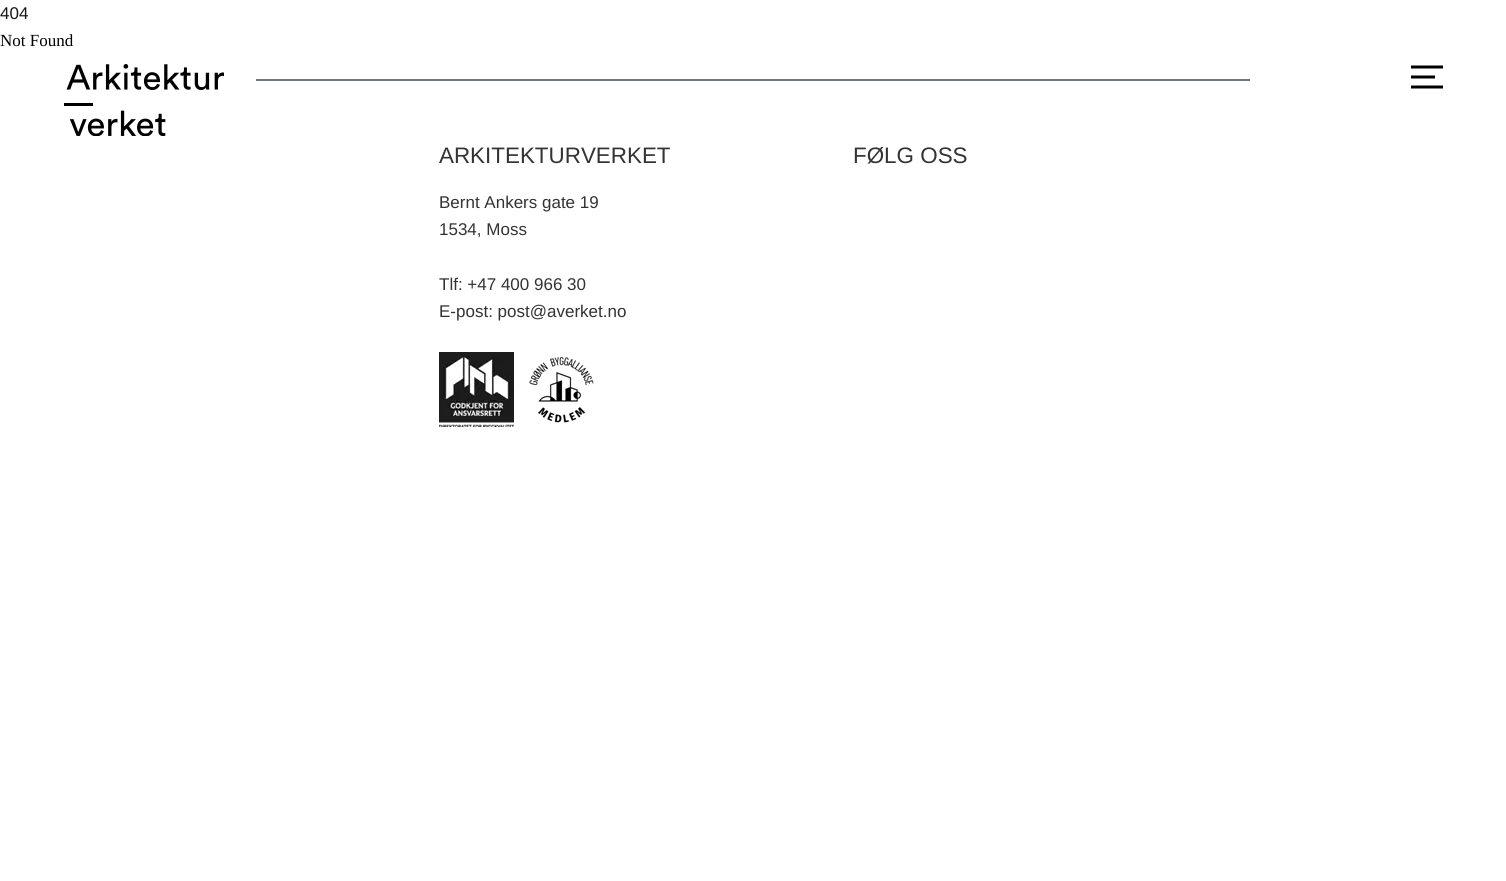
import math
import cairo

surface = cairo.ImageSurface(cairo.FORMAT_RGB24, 1506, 881)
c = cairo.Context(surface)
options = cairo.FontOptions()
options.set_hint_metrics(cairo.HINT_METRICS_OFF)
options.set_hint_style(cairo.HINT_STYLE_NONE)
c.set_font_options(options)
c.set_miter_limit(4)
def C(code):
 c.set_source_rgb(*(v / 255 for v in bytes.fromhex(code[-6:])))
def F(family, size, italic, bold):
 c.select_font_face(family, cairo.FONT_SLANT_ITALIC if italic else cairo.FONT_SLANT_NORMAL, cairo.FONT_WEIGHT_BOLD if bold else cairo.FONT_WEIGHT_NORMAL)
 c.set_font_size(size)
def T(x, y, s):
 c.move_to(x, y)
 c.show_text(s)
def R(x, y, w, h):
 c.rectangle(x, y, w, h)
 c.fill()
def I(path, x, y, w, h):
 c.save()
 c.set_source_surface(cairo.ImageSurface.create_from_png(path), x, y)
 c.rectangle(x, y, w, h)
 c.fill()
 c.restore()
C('ffffff')
c.paint()
F('Liberation Sans',17,0,0)
C('171617')
T(0,19,'404')
F('Liberation Serif',17,0,0)
C('000000')
T(0,46,'Not Found')
I('1.png',64,64,160,72)
c.new_path()
c.move_to(1411,67)
c.line_to(1443,67)
c.move_to(1411,77)
c.line_to(1435,77)
c.move_to(1411,87)
c.line_to(1443,87)
c.set_line_width(3)
c.stroke()
C('6e7581')
R(256,79,994,2)
F('Liberation Sans',22.4,0,0)
C('333333')
T(439,163,'ARKITEKTURVERKET')
F('Liberation Sans',17,0,0)
T(439,208,'Bernt Ankers gate 19')
T(439,235,'1534, Moss')
T(439,290,'Tlf: +47 400 966 30')
T(439,317,'E-post: post@averket.no')
I('2.png',439,352,75,75)
I('3.png',529,356,65,67)
F('Liberation Sans',22.4,0,0)
T(853,163,'FØLG OSS')
surface.write_to_png('o.png')
